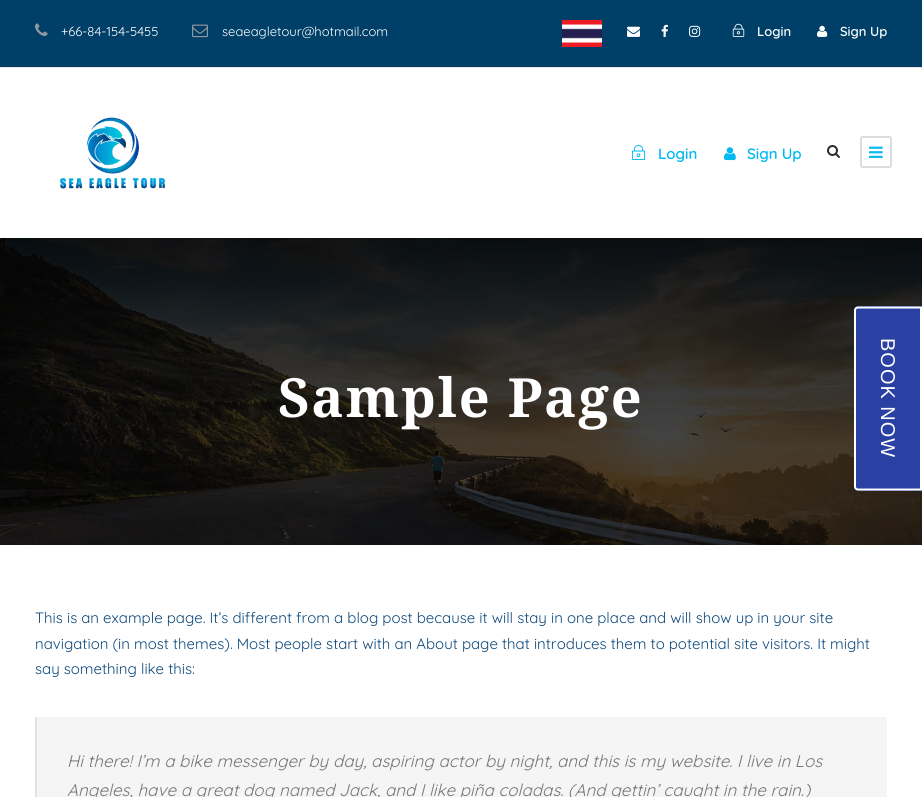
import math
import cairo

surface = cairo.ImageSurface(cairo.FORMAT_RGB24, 922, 797)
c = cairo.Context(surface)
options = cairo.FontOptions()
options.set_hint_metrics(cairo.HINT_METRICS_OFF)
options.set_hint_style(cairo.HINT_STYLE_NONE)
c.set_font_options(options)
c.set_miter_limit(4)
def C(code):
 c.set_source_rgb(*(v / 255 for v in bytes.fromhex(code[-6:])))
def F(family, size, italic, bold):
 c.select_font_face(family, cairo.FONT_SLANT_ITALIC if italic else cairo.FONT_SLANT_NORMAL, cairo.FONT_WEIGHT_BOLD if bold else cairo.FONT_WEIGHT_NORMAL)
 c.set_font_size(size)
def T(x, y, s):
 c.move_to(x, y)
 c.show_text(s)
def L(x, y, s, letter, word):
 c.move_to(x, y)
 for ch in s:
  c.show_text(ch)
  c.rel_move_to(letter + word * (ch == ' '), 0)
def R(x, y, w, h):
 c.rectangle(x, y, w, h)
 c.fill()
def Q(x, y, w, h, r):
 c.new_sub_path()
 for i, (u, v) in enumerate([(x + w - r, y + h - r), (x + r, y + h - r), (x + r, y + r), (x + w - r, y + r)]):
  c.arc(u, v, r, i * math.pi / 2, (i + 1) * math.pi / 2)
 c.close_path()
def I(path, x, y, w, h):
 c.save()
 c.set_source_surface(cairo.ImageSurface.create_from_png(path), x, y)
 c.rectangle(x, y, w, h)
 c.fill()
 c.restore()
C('ffffff')
c.paint()
C('e9e9e9')
R(0,67,922,1)
C('004068')
R(0,0,922,67)
I('1.png',35,23,13,13)
F('Quicksand',13,0,0)
C('ffffff')
T(61,36,'+66-84-154-5455')
I('2.png',192,24,16,14)
T(222,36,'seaeagletour@hotmail.com')
I('3.png',562,20,40,27)
I('4.png',627,26,13,11)
I('5.png',661,24,7,13)
I('6.png',689,25,12,12)
I('7.png',732,23,13,14)
F('Quicksand SemiBold',13,0,0)
T(757,36,'Login')
I('8.png',817,25,11,12)
T(840,36,'Sign Up')
I('9.png',60,117,105,72)
I('10.png',631,144,15,16)
F('Quicksand SemiBold',15,0,0)
C('00b9f2')
T(658,159,'Login')
I('11.png',724,147,12,14)
T(747,159,'Sign Up')
I('12.png',827,145,13,13)
Q(861,137,30,30,2)
C('dddddd')
c.stroke()
I('13.png',869,146,14,12)
I('14.png',0,238,922,307)
F('Noto Serif Ethiopic',54,0,1)
C('ffffff')
L(278,417,'Sample Page',2,0)
F('Quicksand',15,0,0)
C('0d497c')
T(35,623,'This is an example page. It’s different from a blog post because it will stay in one place and will show up in your site')
T(35,649,'navigation (in most themes). Most people start with an About page that introduces them to potential site visitors. It might')
T(35,674,'say something like this:')
C('f5f5f5')
R(37,717,850,80)
C('e2e2e2')
R(35,717,2,80)
F('Quicksand',17,1,0)
C('777777')
T(67,767,'Hi there! I’m a bike messenger by day, aspiring actor by night, and this is my website. I live in Los')
T(67,796,'Angeles, have a great dog named Jack, and I like piña coladas. (And gettin’ caught in the rain.)')
C('2a40a3')
c.new_path()
c.move_to(922,306)
c.line_to(922,491)
c.line_to(858,491)
c.curve_to(856,491,854,489,854,487)
c.line_to(854,310)
c.curve_to(854,308,856,306,858,306)
c.close_path()
c.fill()
c.new_path()
c.move_to(921,307.5)
c.line_to(921,489.5)
c.line_to(858,489.5)
c.curve_to(856.5,489.5,855,488.5,855,486.5)
c.line_to(855,310.5)
c.curve_to(855,308.5,856.5,307.5,858,307.5)
c.close_path()
C('ffffff')
c.stroke()
F('Liberation Sans',20,0,0)
c.save()
c.translate(881,338)
c.rotate(90 * math.pi / 180)
L(0,0,'BOOK NOW',1,0)
c.restore()
surface.write_to_png('o.png')
